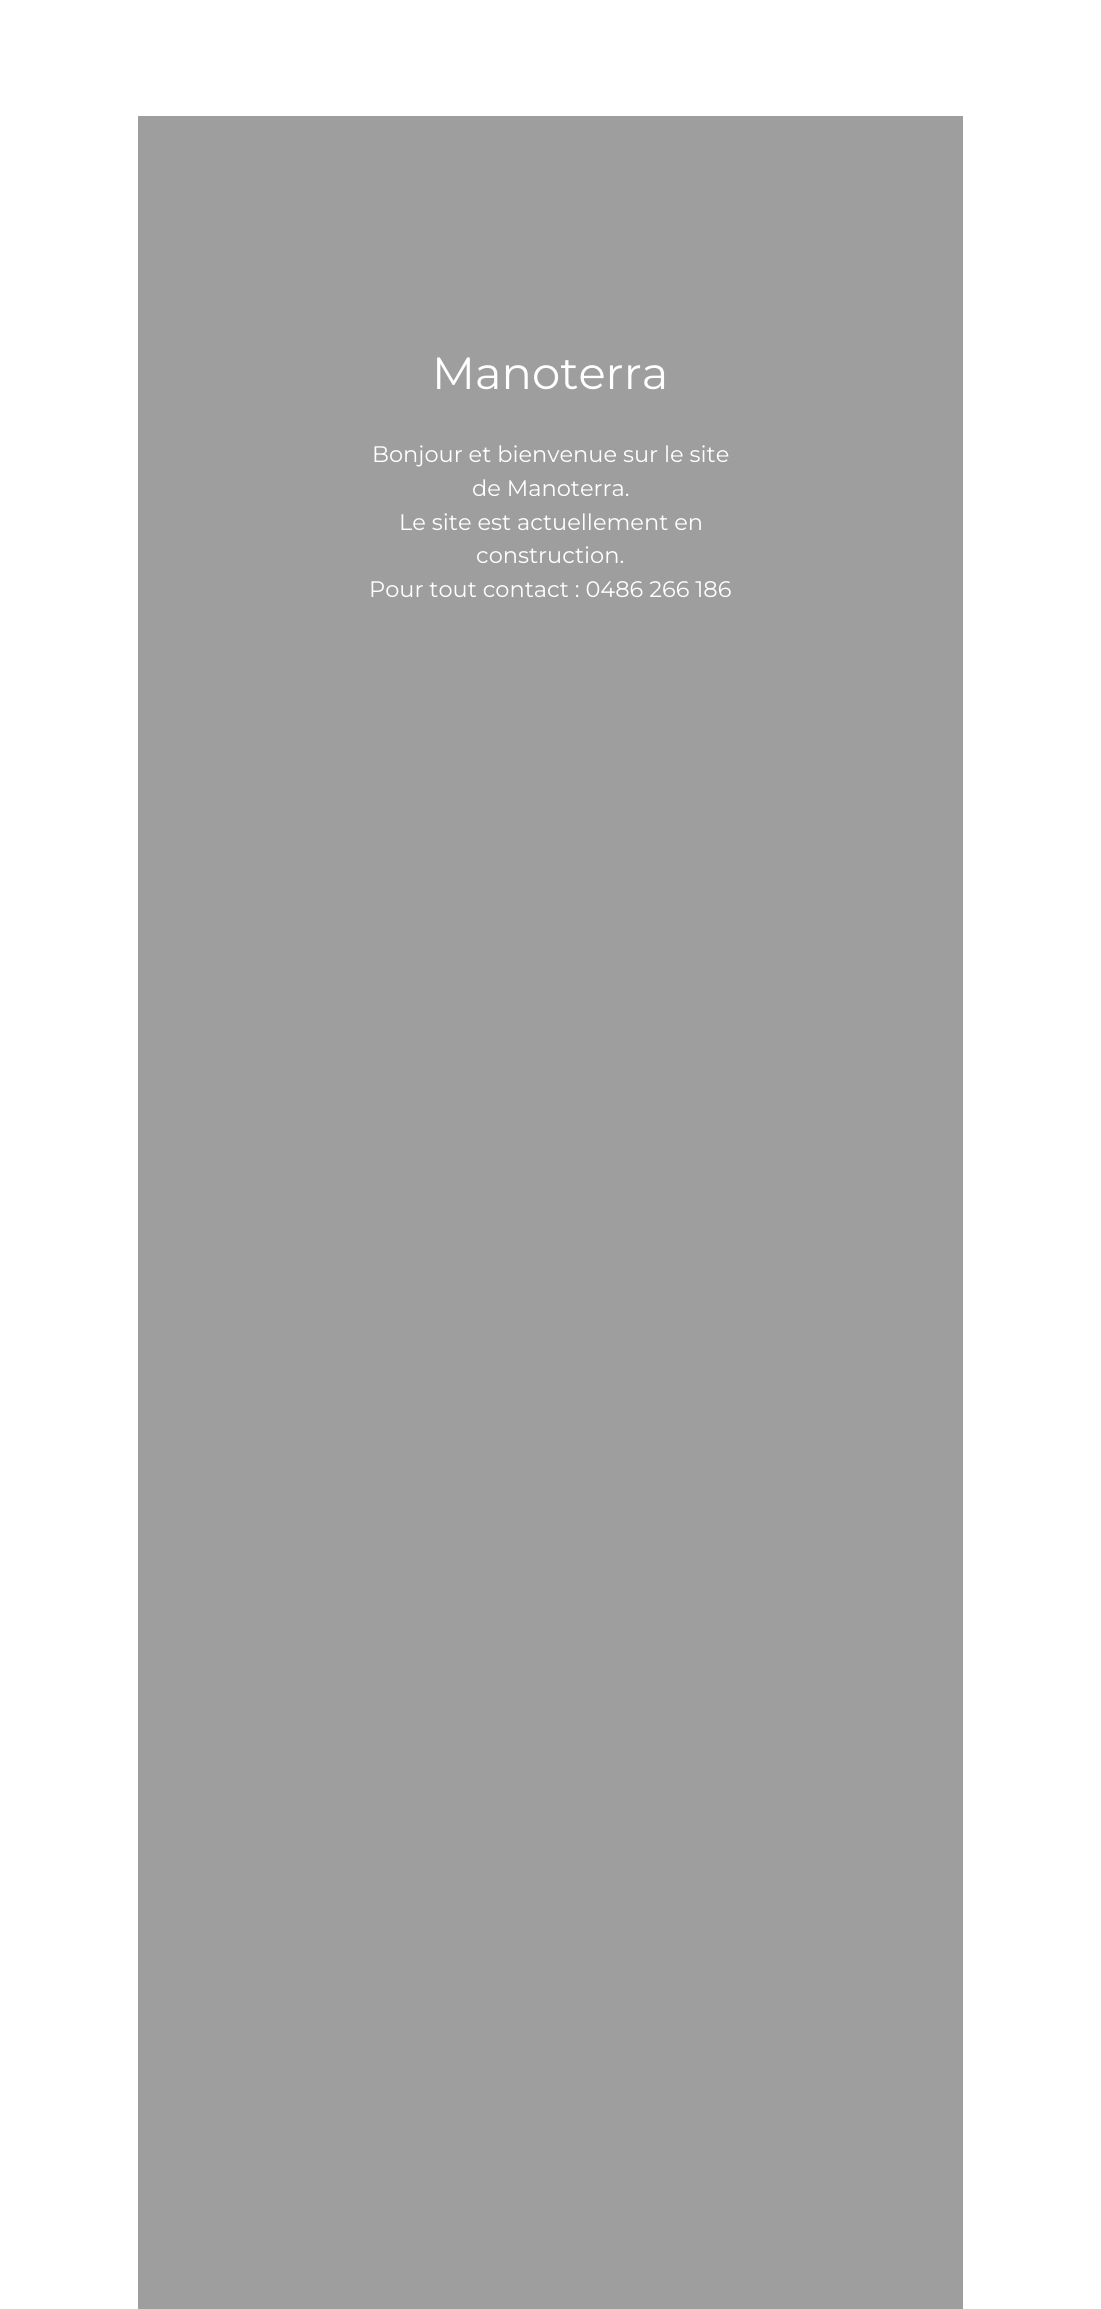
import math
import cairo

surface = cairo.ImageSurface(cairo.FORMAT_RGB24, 1101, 2309)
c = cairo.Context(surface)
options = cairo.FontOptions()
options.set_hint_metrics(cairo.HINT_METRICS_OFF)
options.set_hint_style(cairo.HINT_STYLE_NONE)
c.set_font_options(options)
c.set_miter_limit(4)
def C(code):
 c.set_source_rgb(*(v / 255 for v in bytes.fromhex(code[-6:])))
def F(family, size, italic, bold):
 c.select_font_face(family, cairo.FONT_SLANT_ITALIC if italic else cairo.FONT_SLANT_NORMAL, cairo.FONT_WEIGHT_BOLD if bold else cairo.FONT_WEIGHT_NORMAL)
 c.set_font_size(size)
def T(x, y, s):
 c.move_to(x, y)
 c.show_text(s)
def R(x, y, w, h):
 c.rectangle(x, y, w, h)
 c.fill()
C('ffffff')
c.paint()
C('9e9e9e')
R(138,116,825,2193)
F('Montserrat',45,0,0)
C('ffffff')
T(432,389,'Manoterra')
F('Montserrat',22.5,0,0)
T(372,462,'Bonjour et bienvenue sur le site')
T(472,496,'de Manoterra.')
T(399,530,'Le site est actuellement en')
T(476,563,'construction.')
T(369,597,'Pour tout contact : 0486 266 186')
surface.write_to_png('o.png')
